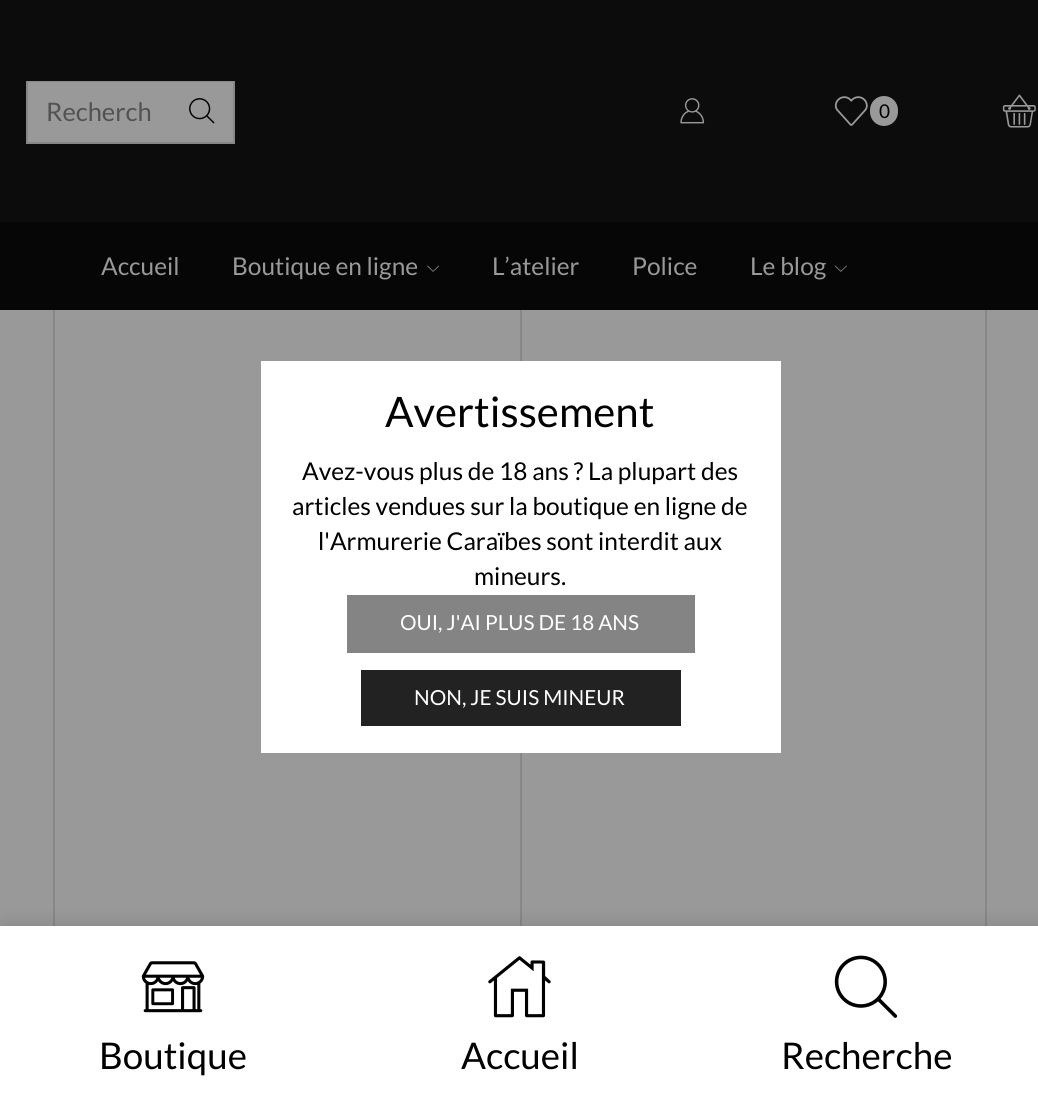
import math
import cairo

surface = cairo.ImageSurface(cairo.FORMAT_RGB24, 1038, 1112)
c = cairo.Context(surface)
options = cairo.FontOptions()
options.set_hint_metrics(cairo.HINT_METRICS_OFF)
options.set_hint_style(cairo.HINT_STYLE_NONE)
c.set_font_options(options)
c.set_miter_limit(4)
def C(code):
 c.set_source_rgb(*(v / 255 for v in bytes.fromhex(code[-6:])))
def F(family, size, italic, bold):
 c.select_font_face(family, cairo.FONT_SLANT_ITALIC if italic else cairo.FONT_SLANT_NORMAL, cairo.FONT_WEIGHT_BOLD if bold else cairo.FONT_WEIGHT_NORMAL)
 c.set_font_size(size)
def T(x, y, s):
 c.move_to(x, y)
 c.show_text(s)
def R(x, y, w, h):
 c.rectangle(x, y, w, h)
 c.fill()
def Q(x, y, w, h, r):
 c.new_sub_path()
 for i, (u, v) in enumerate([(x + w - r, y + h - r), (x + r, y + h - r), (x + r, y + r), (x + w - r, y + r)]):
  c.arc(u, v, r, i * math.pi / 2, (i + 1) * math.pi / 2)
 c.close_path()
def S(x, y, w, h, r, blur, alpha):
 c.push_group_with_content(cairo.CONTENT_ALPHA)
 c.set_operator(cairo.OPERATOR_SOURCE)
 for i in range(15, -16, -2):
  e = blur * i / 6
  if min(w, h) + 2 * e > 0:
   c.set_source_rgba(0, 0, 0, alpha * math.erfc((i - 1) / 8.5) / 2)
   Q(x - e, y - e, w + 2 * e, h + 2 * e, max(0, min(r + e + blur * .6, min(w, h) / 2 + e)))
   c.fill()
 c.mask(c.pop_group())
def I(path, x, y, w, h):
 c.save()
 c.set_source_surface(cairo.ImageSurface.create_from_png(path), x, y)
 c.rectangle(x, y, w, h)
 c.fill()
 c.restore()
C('999999')
c.paint()
C('0c0c0c')
R(0,0,1038,222)
c.rectangle(27,82,207,61)
C('878787')
c.stroke()
C('999999')
R(28,82,205,60)
F('Lato',25.5,0,0)
C('525252')
T(46,121,'Recherch')
I('1.png',189,98,26,26)
I('2.png',680,98,25,26)
I('3.png',834,96,34,30)
C('999999')
Q(870,96,28,30,14)
c.fill()
F('Lato',19,0,0)
C('000000')
T(879,118,'0')
I('4.png',1002,94,34,34)
C('060606')
R(0,222,1038,88)
F('Lato',24.5,0,0)
C('999999')
T(101,275,'Accueil')
T(232,275,'Boutique en ligne')
I('5.png',427,265,12,7)
T(492,275,'L’atelier')
T(632,275,'Police')
T(750,275,'Le blog')
I('6.png',835,265,12,7)
C('878787')
R(53,310,2,616)
R(520,310,2,616)
R(985,310,2,616)
C('000000')
S(4,926,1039,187,0,10.5,.15)
C('ffffff')
R(0,926,1038,186)
I('7.png',141,961,64,52)
F('Lato',36.75,0,0)
C('000000')
T(99,1069,'Boutique')
I('8.png',488,956,63,62)
T(461,1069,'Accueil')
I('9.png',834,955,64,63)
T(781,1069,'Recherche')
C('ffffff')
R(261,361,520,392)
F('Lato',42,0,0)
C('000000')
T(385,427,'Avertissement')
F('Lato',24.5,0,0)
T(302,480,'Avez-vous plus de 18 ans ? La plupart des')
T(292,515,'articles vendues sur la boutique en ligne de')
T(318,550,'l\'Armurerie Caraïbes sont interdit aux')
T(474,585,'mineurs.')
C('848484')
R(347,595,348,58)
F('Lato',20.75,0,0)
C('ffffff')
T(400,630,'OUI, J\'AI PLUS DE 18 ANS')
C('222222')
R(361,670,320,56)
C('ffffff')
T(414,705,'NON, JE SUIS MINEUR')
surface.write_to_png('o.png')
